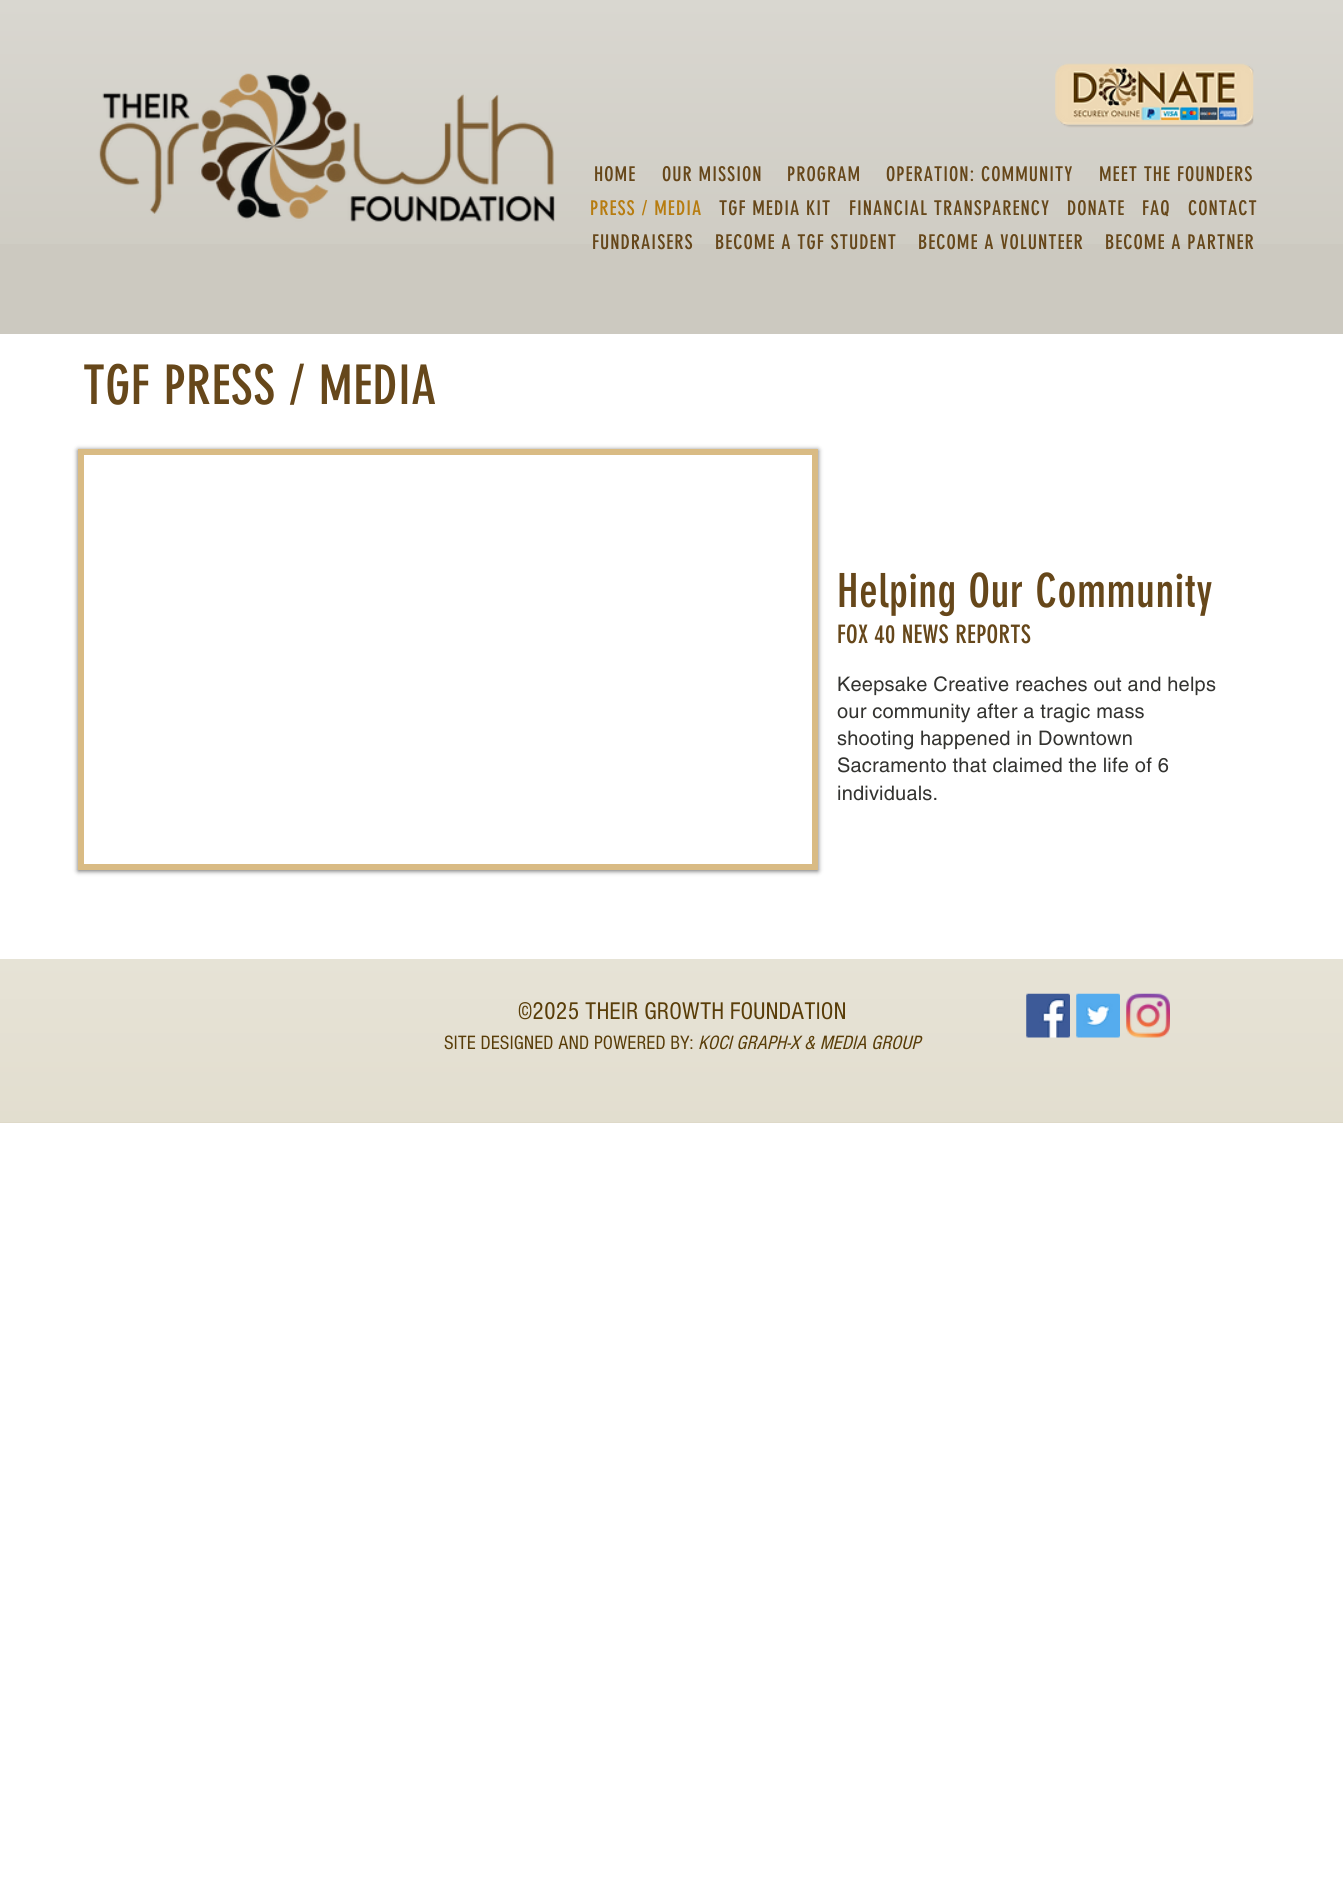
import math
import cairo

surface = cairo.ImageSurface(cairo.FORMAT_RGB24, 1343, 1882)
c = cairo.Context(surface)
options = cairo.FontOptions()
options.set_hint_metrics(cairo.HINT_METRICS_OFF)
options.set_hint_style(cairo.HINT_STYLE_NONE)
c.set_font_options(options)
c.set_miter_limit(4)
def C(code):
 c.set_source_rgb(*(v / 255 for v in bytes.fromhex(code[-6:])))
def F(family, size, italic, bold):
 c.select_font_face(family, cairo.FONT_SLANT_ITALIC if italic else cairo.FONT_SLANT_NORMAL, cairo.FONT_WEIGHT_BOLD if bold else cairo.FONT_WEIGHT_NORMAL)
 c.set_font_size(size)
def T(x, y, s):
 c.move_to(x, y)
 c.show_text(s)
def L(x, y, s, letter, word):
 c.move_to(x, y)
 for ch in s:
  c.show_text(ch)
  c.rel_move_to(letter + word * (ch == ' '), 0)
def R(x, y, w, h):
 c.rectangle(x, y, w, h)
 c.fill()
def Q(x, y, w, h, r):
 c.new_sub_path()
 for i, (u, v) in enumerate([(x + w - r, y + h - r), (x + r, y + h - r), (x + r, y + r), (x + w - r, y + r)]):
  c.arc(u, v, r, i * math.pi / 2, (i + 1) * math.pi / 2)
 c.close_path()
def S(x, y, w, h, r, blur, alpha):
 c.push_group_with_content(cairo.CONTENT_ALPHA)
 c.set_operator(cairo.OPERATOR_SOURCE)
 for i in range(15, -16, -2):
  e = blur * i / 6
  if min(w, h) + 2 * e > 0:
   c.set_source_rgba(0, 0, 0, alpha * math.erfc((i - 1) / 8.5) / 2)
   Q(x - e, y - e, w + 2 * e, h + 2 * e, max(0, min(r + e + blur * .6, min(w, h) / 2 + e)))
   c.fill()
 c.mask(c.pop_group())
def I(path, x, y, w, h):
 c.save()
 c.set_source_surface(cairo.ImageSurface.create_from_png(path), x, y)
 c.rectangle(x, y, w, h)
 c.fill()
 c.restore()
C('ffffff')
c.paint()
C('ccc9c0')
R(0,0,1343,334)
I('1.png',0,0,1343,244)
I('2.png',98,73,457,149)
I('3.png',1055,63,199,65)
F('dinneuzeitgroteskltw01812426',20,0,0)
C('66471a')
L(594,181,'HOME',1,0)
L(662,181,'OUR MISSION',1,0)
L(787,181,'PROGRAM',1,0)
L(886,181,'OPERATION: COMMUNITY',1,0)
L(1099,181,'MEET THE FOUNDERS',1,0)
C('b77c10')
L(590,215,'PRESS / MEDIA',1,0)
C('66471a')
L(719,215,'TGF MEDIA KIT',1,0)
L(849,215,'FINANCIAL TRANSPARENCY',1,0)
L(1067,215,'DONATE',1,0)
L(1142,215,'FAQ',1,0)
L(1188,215,'CONTACT',1,0)
L(592,249,'FUNDRAISERS',1,0)
L(715,249,'BECOME A TGF STUDENT',1,0)
L(918,249,'BECOME A VOLUNTEER',1,0)
L(1105,249,'BECOME A PARTNER',1,0)
F('dinneuzeitgroteskltw01812426',53.75,0,0)
L(83,404,'TGF PRESS / MEDIA',.5,0)
c.save()
c.set_fill_rule(cairo.FILL_RULE_EVEN_ODD)
c.new_path()
c.move_to(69,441)
c.line_to(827,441)
c.line_to(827,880)
c.line_to(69,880)
c.close_path()
c.move_to(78,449)
c.line_to(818,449)
c.line_to(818,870)
c.line_to(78,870)
c.close_path()
c.clip()
C('000000')
S(78,450,740,421,0,2.5,.6)
c.restore()
c.rectangle(81,452,734,415)
C('d9bb84')
c.set_line_width(6)
c.stroke()
F('dinneuzeitgroteskltw01812426',46.25,0,0)
C('66471a')
L(837,607,'Helping Our Community',.5,0)
F('dinneuzeitgroteskltw01812426',25,0,0)
L(837,643,'FOX 40 NEWS REPORTS',.25,0)
F('helvetica',20,0,0)
C('333330')
L(837,691,'Keepsake Creative reaches out and helps',.2,0)
L(837,718,'our community after a tragic mass',.2,0)
L(837,745,'shooting happened in Downtown',.2,0)
L(837,772,'Sacramento that claimed the life of 6',.2,0)
L(837,800,'individuals.',.2,0)
C('ded9c8')
R(0,959,1343,164)
I('4.png',0,959,1343,163)
F('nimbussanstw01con',25,0,0)
C('593d08')
T(518,1019,'©2025 THEIR GROWTH FOUNDATION')
F('nimbussanstw01con',20,0,0)
T(444,1049,'SITE DESIGNED AND POWERED BY:')
F('nimbussanstw01con',20,1,0)
T(698,1049,'KOCI GRAPH-X & MEDIA GROUP')
I('5.png',1026,993,44,45)
I('6.png',1076,993,44,45)
I('7.png',1126,993,44,45)
surface.write_to_png('o.png')
